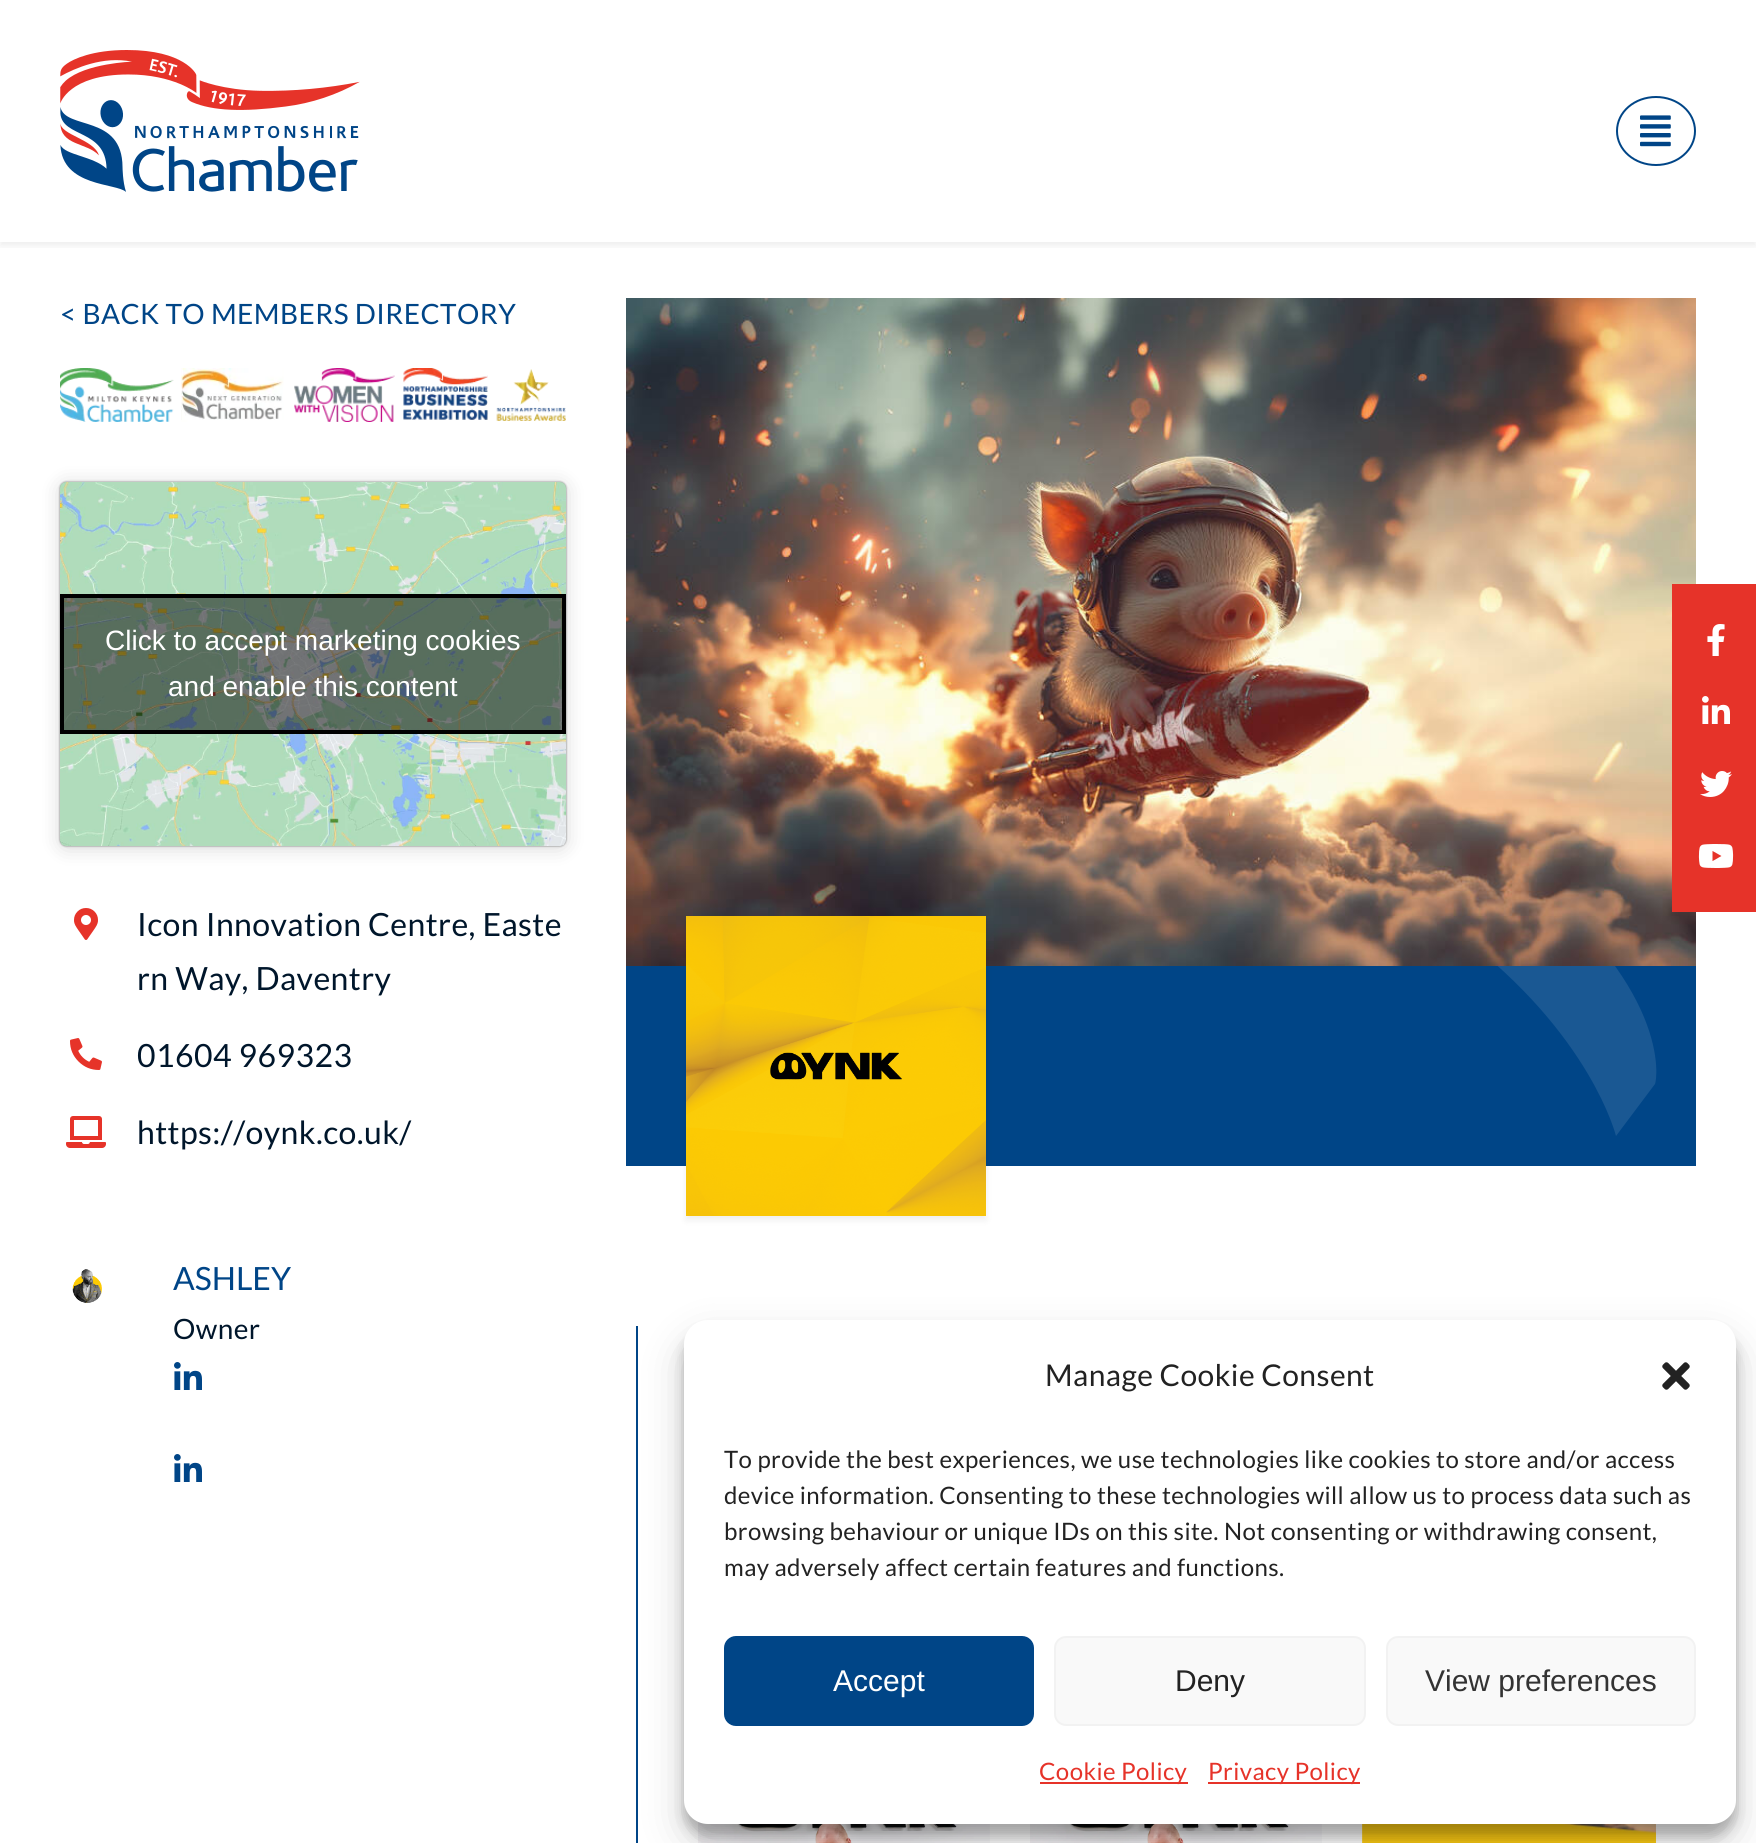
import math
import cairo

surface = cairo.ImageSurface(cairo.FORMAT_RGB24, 1756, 1843)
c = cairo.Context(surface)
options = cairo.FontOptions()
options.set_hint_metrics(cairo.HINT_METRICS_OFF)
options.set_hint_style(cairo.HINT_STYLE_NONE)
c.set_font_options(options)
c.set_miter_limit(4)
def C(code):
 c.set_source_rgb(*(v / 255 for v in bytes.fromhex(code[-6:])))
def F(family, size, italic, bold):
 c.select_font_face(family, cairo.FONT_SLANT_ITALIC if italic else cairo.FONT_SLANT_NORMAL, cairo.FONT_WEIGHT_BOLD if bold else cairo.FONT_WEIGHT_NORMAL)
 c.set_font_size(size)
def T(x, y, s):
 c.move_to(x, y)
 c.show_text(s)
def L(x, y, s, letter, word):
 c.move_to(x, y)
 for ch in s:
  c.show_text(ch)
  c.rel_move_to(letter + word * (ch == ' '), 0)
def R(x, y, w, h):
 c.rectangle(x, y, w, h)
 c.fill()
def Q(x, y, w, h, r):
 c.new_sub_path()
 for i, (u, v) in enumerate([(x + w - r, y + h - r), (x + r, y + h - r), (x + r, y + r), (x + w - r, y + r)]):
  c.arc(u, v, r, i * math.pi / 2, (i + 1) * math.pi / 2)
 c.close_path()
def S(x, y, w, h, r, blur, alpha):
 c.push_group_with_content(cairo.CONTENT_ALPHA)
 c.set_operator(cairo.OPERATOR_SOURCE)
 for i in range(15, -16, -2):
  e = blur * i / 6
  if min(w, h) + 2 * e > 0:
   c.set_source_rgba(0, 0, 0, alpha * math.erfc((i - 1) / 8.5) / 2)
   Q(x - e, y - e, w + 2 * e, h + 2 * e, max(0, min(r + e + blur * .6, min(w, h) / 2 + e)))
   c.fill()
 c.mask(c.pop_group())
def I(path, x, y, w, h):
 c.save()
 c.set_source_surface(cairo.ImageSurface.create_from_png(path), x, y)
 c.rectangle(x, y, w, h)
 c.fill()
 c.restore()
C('ffffff')
c.paint()
c.save()
c.rectangle(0,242,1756,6)
c.clip()
C('000000')
S(0,4,1756,242,0,4,.07)
c.restore()
I('1.png',60,50,300,142)
c.new_path()
c.move_to(1656,97)
c.curve_to(1677.5,97,1695,112,1695,131)
c.curve_to(1695,150,1677.5,165,1656,165)
c.curve_to(1634.5,165,1617,150,1617,131)
c.curve_to(1617,112,1634.5,97,1656,97)
c.close_path()
C('004587')
c.stroke()
I('2.png',1640,115,31,32)
I('14.png',626,298,1070,668)
C('e63329')
R(1672,584,84,328)
I('3.png',1707,624,18,32)
I('4.png',1702,696,28,28)
I('5.png',1700,771,32,26)
I('6.png',1698,844,36,24)
F('Lato',28,0,0)
C('004587')
L(60,324,'< BACK TO MEMBERS DIRECTORY',.42,0)
I('7.png',60,368,506,54)
C('000000')
S(60,484,506,364,6,10,.15)
S(60,482,506,364,6,1,.5)
I('8.png',60,482,506,364)
c.set_source_rgba(0,0,0,0.5)
c.rectangle(62,596,502,136)
c.fill_preserve()
C('000000')
c.set_line_width(4)
c.stroke()
F('Liberation Sans',28,0,0)
C('ffffff')
T(105,650,'Click to accept marketing cookies')
T(168,696,'and enable this content')
I('9.png',74,908,24,32)
F('Lato',32,0,0)
C('00162b')
L(137,936,'Icon Innovation Centre, Easte',.42,0)
L(137,990,'rn Way, Daventry',.42,0)
I('10.png',70,1038,32,32)
L(137,1067,'01604 969323',.42,0)
I('11.png',66,1116,40,32)
L(137,1144,'https://oynk.co.uk/',.42,0)
I('12.png',72,1269,30,34)
C('004587')
T(173,1290,'ASHLEY')
F('Lato',28,0,0)
C('00162b')
L(173,1339,'Owner',.42,0)
I('13.png',174,1362,28,28)
I('13.png',174,1454,28,28)
C('004587')
R(626,966,1070,200)
C('000000')
S(686,920,300,300,0,4,.07)
I('15.png',686,916,300,300)
c.save()
c.rectangle(1200,966,508,200)
c.clip()
C('1a5893')
c.new_path()
c.move_to(1256,796)
c.line_to(1263,787)
c.curve_to(1273,775,1281,769,1306,770)
c.curve_to(1335,771,1409,786,1508,861)
c.curve_to(1673,985,1657,1080,1655,1084)
c.line_to(1616,1136)
c.curve_to(1616,1136,1591,1034,1460,935)
c.curve_to(1296,811,1209,864,1201,870)
c.line_to(1229,832)
c.curve_to(1253,799,1423,802,1567,962)
c.curve_to(1535,896,1371,775,1256,796)
c.close_path()
c.fill()
c.restore()
C('004587')
R(636,1326,2,517)
I('16.png',698,1821,292,22)
I('17.png',1030,1824,292,19)
I('18.png',1362,1824,294,19)
C('000000')
S(684,1332,1052,504,24,6,.23)
S(684,1340,1052,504,24,20,.19)
C('ffffff')
Q(684,1320,1052,504,24)
c.fill()
F('Lato',30,0,0)
C('222222')
L(1045,1386,'Manage Cookie Consent',.42,0)
I('19.png',1662,1362,28,28)
F('Lato',24,0,0)
L(724,1468,'To provide the best experiences, we use technologies like cookies to store and/or access',.42,0)
L(724,1504,'device information. Consenting to these technologies will allow us to process data such as',.42,0)
L(724,1540,'browsing behaviour or unique IDs on this site. Not consenting or withdrawing consent,',.42,0)
L(724,1576,'may adversely affect certain features and functions.',.42,0)
C('004587')
Q(725,1637,308,88,11)
c.fill_preserve()
c.set_line_width(2)
c.stroke()
F('Liberation Sans',30,0,0)
C('ffffff')
T(833,1691,'Accept')
C('f9f9f9')
Q(1055,1637,310,88,11)
c.fill_preserve()
C('f2f2f2')
c.stroke()
C('222222')
T(1175,1691,'Deny')
C('f9f9f9')
Q(1387,1637,308,88,11)
c.fill_preserve()
C('f2f2f2')
c.stroke()
C('333333')
T(1425,1691,'View preferences')
C('e63329')
R(1040,1782,148,2)
F('Lato',24,0,0)
L(1039,1780,'Cookie Policy',.42,0)
R(1208,1782,152,2)
L(1208,1780,'Privacy Policy',.42,0)
surface.write_to_png('o.png')
